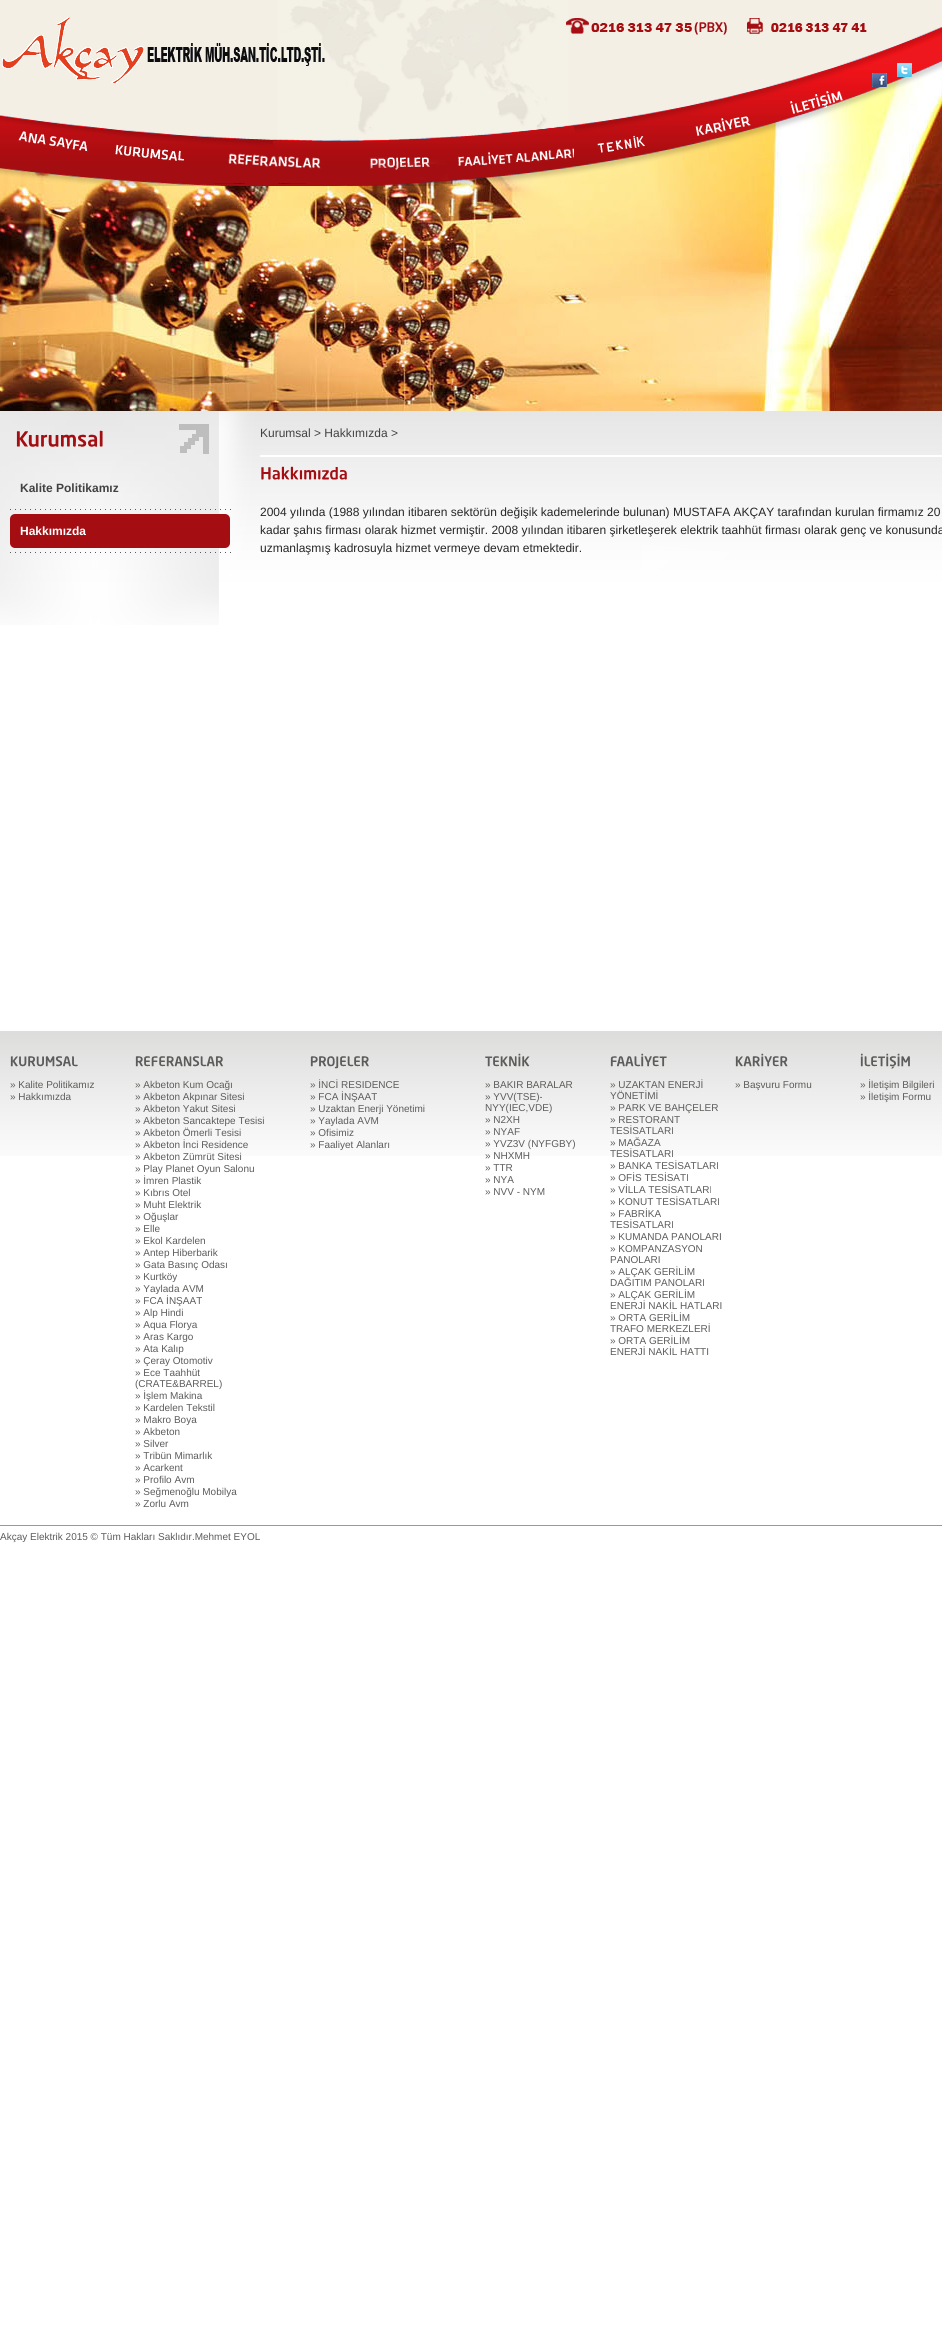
import math
import cairo

surface = cairo.ImageSurface(cairo.FORMAT_RGB24, 942, 2350)
c = cairo.Context(surface)
options = cairo.FontOptions()
options.set_hint_metrics(cairo.HINT_METRICS_OFF)
options.set_hint_style(cairo.HINT_STYLE_NONE)
c.set_font_options(options)
c.set_miter_limit(4)
def C(code):
 c.set_source_rgb(*(v / 255 for v in bytes.fromhex(code[-6:])))
def F(family, size, italic, bold):
 c.select_font_face(family, cairo.FONT_SLANT_ITALIC if italic else cairo.FONT_SLANT_NORMAL, cairo.FONT_WEIGHT_BOLD if bold else cairo.FONT_WEIGHT_NORMAL)
 c.set_font_size(size)
def T(x, y, s):
 c.move_to(x, y)
 c.show_text(s)
def R(x, y, w, h):
 c.rectangle(x, y, w, h)
 c.fill()
def Q(x, y, w, h, r):
 c.new_sub_path()
 for i, (u, v) in enumerate([(x + w - r, y + h - r), (x + r, y + h - r), (x + r, y + r), (x + w - r, y + r)]):
  c.arc(u, v, r, i * math.pi / 2, (i + 1) * math.pi / 2)
 c.close_path()
def I(path, x, y, w, h):
 c.save()
 c.set_source_surface(cairo.ImageSurface.create_from_png(path), x, y)
 c.rectangle(x, y, w, h)
 c.fill()
 c.restore()
C('ffffff')
c.paint()
I('1.png',0,60,942,351)
I('2.png',0,0,942,186)
I('3.png',2,17,323,66)
I('4.png',566,18,161,17)
I('5.png',747,18,120,16)
I('6.png',897,63,15,14)
I('7.png',872,73,15,14)
I('8.png',790,91,53,23)
I('9.png',695,116,56,20)
I('10.png',18,131,70,21)
I('11.png',115,144,69,17)
I('12.png',228,153,93,16)
I('13.png',370,157,78,23)
I('14.png',458,148,116,19)
I('15.png',597,135,48,18)
I('16.png',0,411,942,214)
I('17.png',16,430,87,17)
F('Liberation Sans',12,0,1)
C('424242')
T(20,492,'Kalite Politikamız')
I('18.png',10,509,221,1)
C('a40d11')
Q(10,514,220,34,5)
c.fill()
C('ffffff')
T(20,535,'Hakkımızda')
I('19.png',10,552,221,1)
R(260,455,682,2)
F('Liberation Sans',12,0,0)
C('424242')
T(260,437,'Kurumsal > Hakkımızda >')
I('20.png',261,466,86,14)
C('262626')
T(260,516,'2004 yılında (1988 yılından itibaren sektörün değişik kademelerinde bulunan) MUSTAFA AKÇAY tarafından kurulan firmamız 20')
T(260,534,'kadar şahıs firması olarak hizmet vermiştir. 2008 yılından itibaren şirketleşerek elektrik taahhüt firması olarak genç ve konusunda')
T(260,552,'uzmanlaşmış kadrosuyla hizmet vermeye devam etmektedir.')
I('21.png',0,1031,942,125)
I('22.png',10,1056,68,11)
F('Liberation Sans',10,0,0)
C('5c5c5b')
T(10,1088,'» Kalite Politikamız')
T(10,1100,'» Hakkımızda')
I('23.png',135,1056,88,11)
T(135,1088,'» Akbeton Kum Ocağı')
T(135,1100,'» Akbeton Akpınar Sitesi')
T(135,1112,'» Akbeton Yakut Sitesi')
T(135,1124,'» Akbeton Sancaktepe Tesisi')
T(135,1136,'» Akbeton Ömerli Tesisi')
T(135,1148,'» Akbeton İnci Residence')
T(135,1160,'» Akbeton Zümrüt Sitesi')
T(135,1172,'» Play Planet Oyun Salonu')
T(135,1184,'» İmren Plastik')
T(135,1196,'» Kıbrıs Otel')
T(135,1208,'» Muht Elektrik')
T(135,1220,'» Oğuşlar')
T(135,1232,'» Elle')
T(135,1244,'» Ekol Kardelen')
T(135,1256,'» Antep Hiberbarik')
T(135,1268,'» Gata Basınç Odası')
T(135,1280,'» Kurtköy')
T(135,1292,'» Yaylada AVM')
T(135,1304,'» FCA İNŞAAT')
T(135,1316,'» Alp Hindi')
T(135,1328,'» Aqua Florya')
T(135,1340,'» Aras Kargo')
T(135,1352,'» Ata Kalıp')
T(135,1364,'» Çeray Otomotiv')
T(135,1376,'» Ece Taahhüt')
T(135,1387,'(CRATE&BARREL)')
T(135,1399,'» İşlem Makina')
T(135,1411,'» Kardelen Tekstil')
T(135,1423,'» Makro Boya')
T(135,1435,'» Akbeton')
T(135,1447,'» Silver')
T(135,1459,'» Tribün Mimarlık')
T(135,1471,'» Acarkent')
T(135,1483,'» Profilo Avm')
T(135,1495,'» Seğmenoğlu Mobilya')
T(135,1507,'» Zorlu Avm')
I('24.png',310,1056,59,13)
T(310,1088,'» İNCİ RESIDENCE')
T(310,1100,'» FCA İNŞAAT')
T(310,1112,'» Uzaktan Enerji Yönetimi')
T(310,1124,'» Yaylada AVM')
T(310,1136,'» Ofisimiz')
T(310,1148,'» Faaliyet Alanları')
I('25.png',485,1053,45,14)
T(485,1088,'» BAKIR BARALAR')
T(485,1100,'» YVV(TSE)-')
T(485,1111,'NYY(IEC,VDE)')
T(485,1123,'» N2XH')
T(485,1135,'» NYAF')
T(485,1147,'» YVZ3V (NYFGBY)')
T(485,1159,'» NHXMH')
T(485,1171,'» TTR')
T(485,1183,'» NYA')
T(485,1195,'» NVV - NYM')
I('26.png',610,1053,57,14)
T(610,1088,'» UZAKTAN ENERJİ')
T(610,1099,'YÖNETİMİ')
T(610,1111,'» PARK VE BAHÇELER')
T(610,1123,'» RESTORANT')
T(610,1134,'TESİSATLARI')
T(610,1146,'» MAĞAZA')
T(610,1157,'TESİSATLARI')
T(610,1169,'» BANKA TESİSATLARI')
T(610,1181,'» OFİS TESİSATI')
T(610,1193,'» VİLLA TESİSATLARI')
T(610,1205,'» KONUT TESİSATLARI')
T(610,1217,'» FABRİKA')
T(610,1228,'TESİSATLARI')
T(610,1240,'» KUMANDA PANOLARI')
T(610,1252,'» KOMPANZASYON')
T(610,1263,'PANOLARI')
T(610,1275,'» ALÇAK GERİLİM')
T(610,1286,'DAĞITIM PANOLARI')
T(610,1298,'» ALÇAK GERİLİM')
T(610,1309,'ENERJİ NAKİL HATLARI')
T(610,1321,'» ORTA GERİLİM')
T(610,1332,'TRAFO MERKEZLERİ')
T(610,1344,'» ORTA GERİLİM')
T(610,1355,'ENERJİ NAKİL HATTI')
I('27.png',735,1053,53,14)
T(735,1088,'» Başvuru Formu')
I('28.png',860,1053,50,16)
T(860,1088,'» İletişim Bilgileri')
T(860,1100,'» İletişim Formu')
C('999999')
R(0,1525,942,1)
C('5c5c5b')
T(0,1540,'Akçay Elektrik 2015 © Tüm Hakları Saklıdır.Mehmet EYOL')
surface.write_to_png('o.png')
